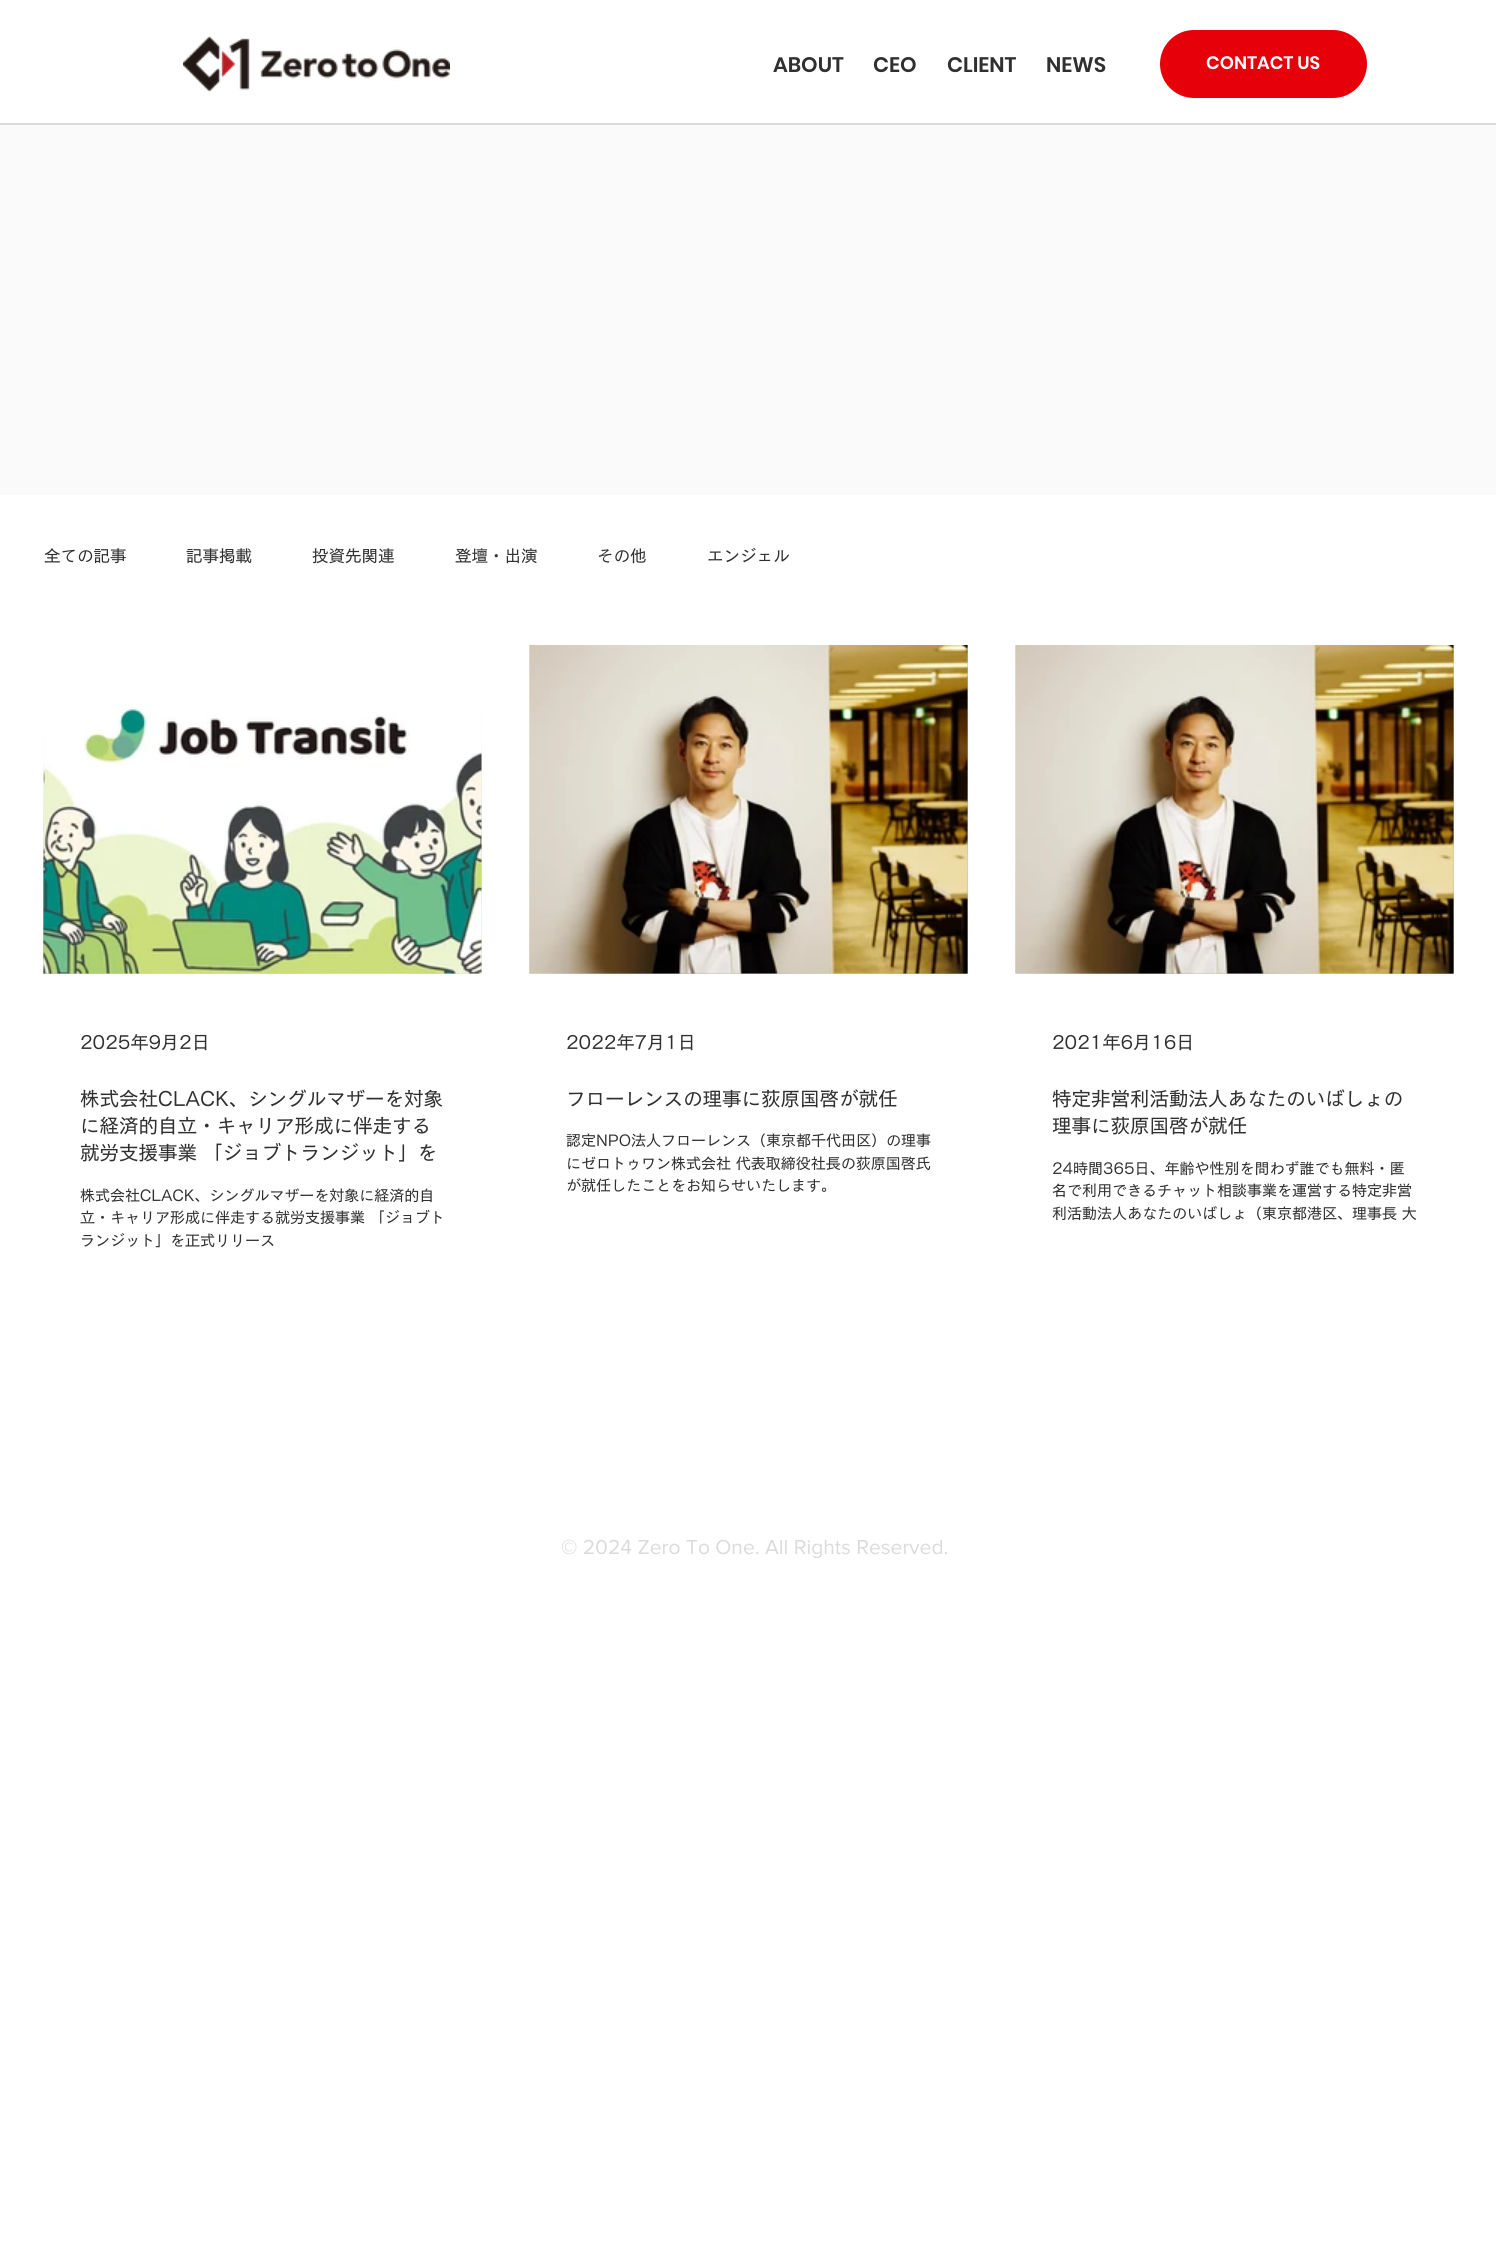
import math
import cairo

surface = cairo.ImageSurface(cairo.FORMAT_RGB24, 1496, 2261)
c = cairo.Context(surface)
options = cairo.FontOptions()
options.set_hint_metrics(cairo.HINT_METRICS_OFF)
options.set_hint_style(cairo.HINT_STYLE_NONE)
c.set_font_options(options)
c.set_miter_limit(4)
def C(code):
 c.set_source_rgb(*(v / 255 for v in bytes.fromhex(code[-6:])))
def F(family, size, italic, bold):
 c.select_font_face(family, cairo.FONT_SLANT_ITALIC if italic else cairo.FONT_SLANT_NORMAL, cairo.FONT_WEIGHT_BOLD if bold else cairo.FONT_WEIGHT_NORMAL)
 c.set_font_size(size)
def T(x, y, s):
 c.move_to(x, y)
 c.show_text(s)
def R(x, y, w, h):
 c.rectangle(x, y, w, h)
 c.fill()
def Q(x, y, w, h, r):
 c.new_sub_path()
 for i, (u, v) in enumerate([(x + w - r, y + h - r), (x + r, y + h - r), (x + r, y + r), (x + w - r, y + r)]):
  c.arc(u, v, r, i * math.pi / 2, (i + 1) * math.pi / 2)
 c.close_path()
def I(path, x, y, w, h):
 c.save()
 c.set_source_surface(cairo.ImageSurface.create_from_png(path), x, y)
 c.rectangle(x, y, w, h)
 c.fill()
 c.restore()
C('ffffff')
c.paint()
I('1.png',183,36,267,56)
F('Poppins SemiBold',21,0,0)
C('303030')
T(773,72,'ABOUT')
T(873,72,'CEO')
T(947,72,'CLIENT')
T(1046,72,'NEWS')
C('e60009')
Q(1160,30,207,68,34)
c.fill()
F('Poppins SemiBold',18,0,0)
C('ffffff')
T(1206,69,'CONTACT US')
C('dbdbdb')
R(0,123,1496,2)
C('fafafa')
R(0,125,1496,370)
F('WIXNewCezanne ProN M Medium',16.5,0,0)
C('303030')
T(44,562,'全ての記事')
T(186,562,'記事掲載')
T(312,562,'投資先関連')
T(455,562,'登壇・出演')
T(597,562,'その他')
T(707,562,'エンジェル')
I('2.png',43,668,439,306)
I('3.png',43,668,439,306)
F('WIXNewCezanne ProN M Medium',18,0,0)
T(80,1049,'2025年9月2日')
F('WIXNewCezanne ProN M Medium',19.5,0,0)
T(80,1106,'株式会社CLACK、シングルマザーを対象')
T(80,1133,'に経済的自立・キャリア形成に伴走する')
T(80,1160,'就労支援事業 「ジョブトランジット」を')
F('WIXNewCezanne ProN M Medium',15,0,0)
T(80,1201,'株式会社CLACK、シングルマザーを対象に経済的自')
T(80,1223,'立・キャリア形成に伴走する就労支援事業 「ジョブト')
T(80,1246,'ランジット」を正式リリース')
I('4.png',529,645,439,329)
I('5.png',529,645,439,329)
F('WIXNewCezanne ProN M Medium',18,0,0)
T(566,1049,'2022年7月1日')
F('WIXNewCezanne ProN M Medium',19.5,0,0)
T(566,1106,'フローレンスの理事に荻原国啓が就任')
F('WIXNewCezanne ProN M Medium',15,0,0)
T(566,1146,'認定NPO法人フローレンス（東京都千代田区）の理事')
T(566,1169,'にゼロトゥワン株式会社 代表取締役社長の荻原国啓氏')
T(566,1191,'が就任したことをお知らせいたします。')
I('4.png',1015,645,439,329)
I('5.png',1015,645,439,329)
F('WIXNewCezanne ProN M Medium',18,0,0)
T(1052,1049,'2021年6月16日')
F('WIXNewCezanne ProN M Medium',19.5,0,0)
T(1052,1106,'特定非営利活動法人あなたのいばしょの')
T(1052,1133,'理事に荻原国啓が就任')
F('WIXNewCezanne ProN M Medium',15,0,0)
T(1052,1174,'24時間365日、年齢や性別を問わず誰でも無料・匿')
T(1052,1196,'名で利用できるチャット相談事業を運営する特定非営')
T(1052,1219,'利活動法人あなたのいばしょ（東京都港区、理事長 大')
F('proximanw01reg',21,0,0)
C('dbdbdb')
T(561,1554,'© 2024 Zero To One. All Rights Reserved.')
surface.write_to_png('o.png')
